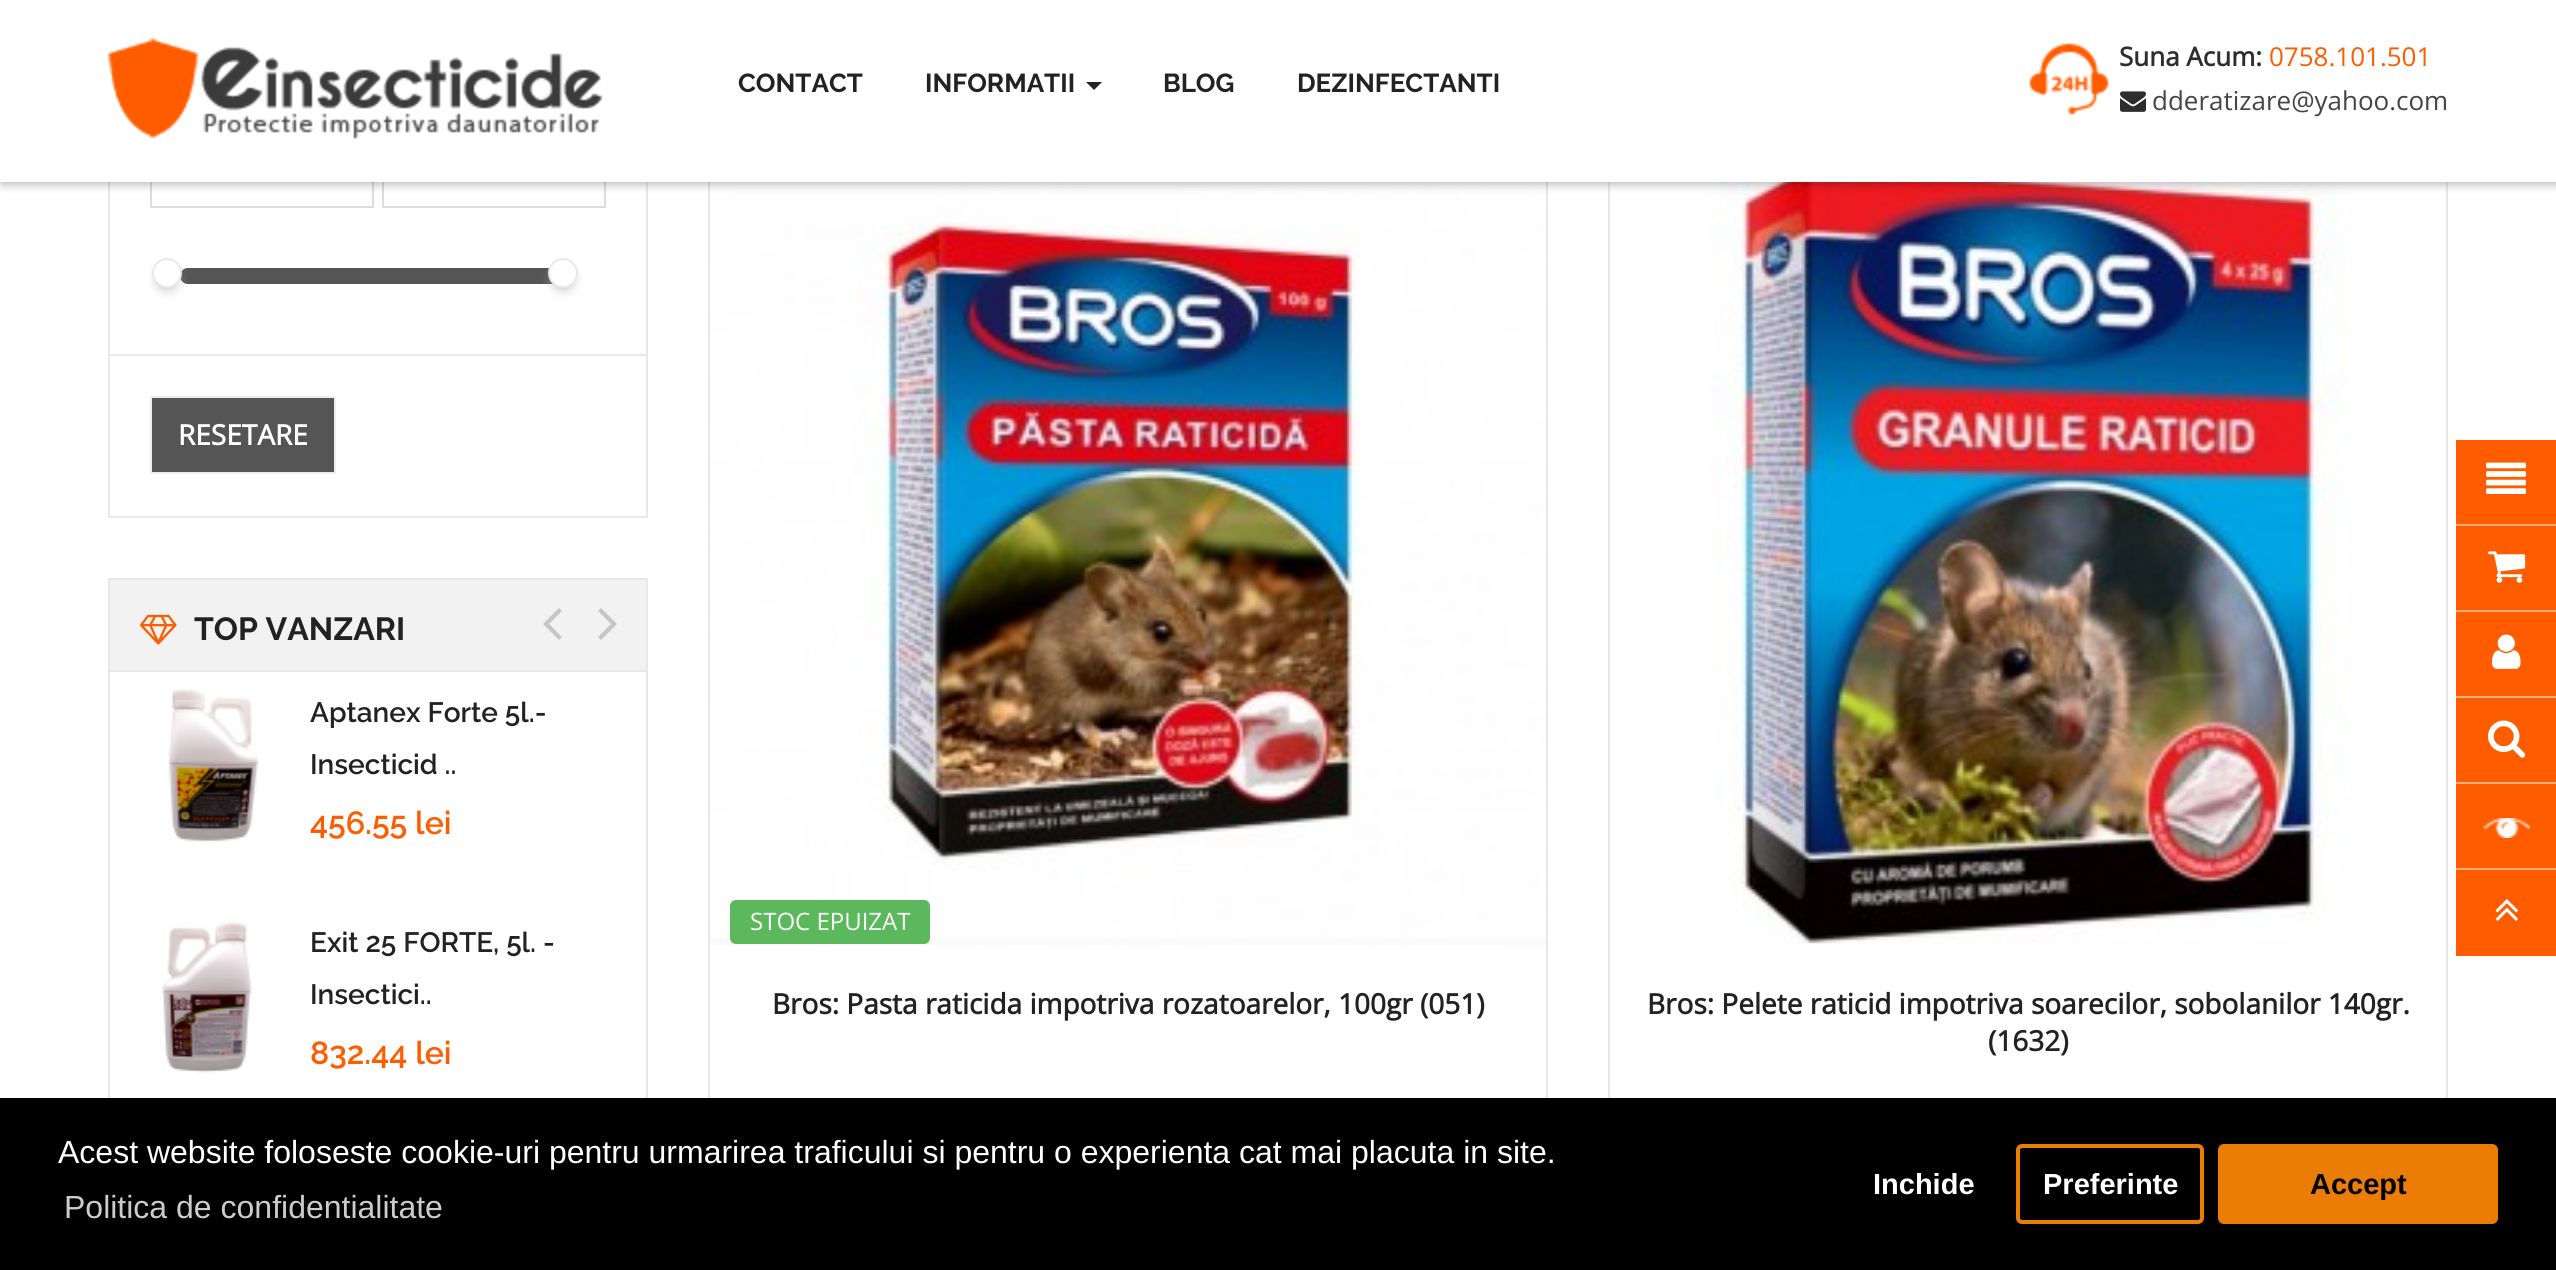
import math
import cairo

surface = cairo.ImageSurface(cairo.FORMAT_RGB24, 2556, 1270)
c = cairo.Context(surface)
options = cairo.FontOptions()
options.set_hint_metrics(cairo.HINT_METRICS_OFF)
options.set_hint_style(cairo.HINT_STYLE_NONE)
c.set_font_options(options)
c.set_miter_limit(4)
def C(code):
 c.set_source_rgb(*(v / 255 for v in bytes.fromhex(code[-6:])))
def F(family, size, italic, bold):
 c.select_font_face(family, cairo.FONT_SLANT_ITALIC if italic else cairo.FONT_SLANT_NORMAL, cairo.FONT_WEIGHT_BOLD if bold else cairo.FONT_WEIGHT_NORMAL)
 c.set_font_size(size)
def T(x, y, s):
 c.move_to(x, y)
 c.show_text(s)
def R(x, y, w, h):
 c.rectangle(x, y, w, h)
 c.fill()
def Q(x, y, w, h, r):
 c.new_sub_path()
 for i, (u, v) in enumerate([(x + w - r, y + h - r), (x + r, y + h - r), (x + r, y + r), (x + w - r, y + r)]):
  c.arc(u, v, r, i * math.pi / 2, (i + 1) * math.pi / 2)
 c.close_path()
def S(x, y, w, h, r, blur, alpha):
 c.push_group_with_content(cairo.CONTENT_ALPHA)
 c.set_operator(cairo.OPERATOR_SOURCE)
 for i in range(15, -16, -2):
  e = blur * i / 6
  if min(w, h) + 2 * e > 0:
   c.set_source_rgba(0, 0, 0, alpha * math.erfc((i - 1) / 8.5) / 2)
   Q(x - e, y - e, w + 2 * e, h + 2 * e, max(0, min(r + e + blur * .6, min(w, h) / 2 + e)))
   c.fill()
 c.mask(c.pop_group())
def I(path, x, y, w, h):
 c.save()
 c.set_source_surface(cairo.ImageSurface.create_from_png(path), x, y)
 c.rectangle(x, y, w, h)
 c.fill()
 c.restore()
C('ffffff')
c.paint()
c.rectangle(109,-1,538,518)
C('e8e8e8')
c.stroke()
c.rectangle(151,129,222,78)
C('dddddd')
c.stroke()
c.rectangle(383,129,222,78)
c.stroke()
c.rectangle(709,127,838,1128)
C('e8e8e8')
c.stroke()
I('15.png',710,182,836,763)
c.rectangle(1609,127,838,1128)
c.stroke()
I('16.png',1709,182,644,762)
C('000000')
S(2,2,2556,182,0,5,.3)
C('ffffff')
R(0,0,2556,182)
I('1.png',108,37,494,102)
F('Raleway',26,0,1)
C('222222')
T(738,92,'CONTACT')
T(925,92,'INFORMATII')
c.new_path()
c.move_to(1086,82)
c.line_to(1102,82)
c.line_to(1094,90)
c.close_path()
c.fill()
T(1163,92,'BLOG')
T(1297,92,'DEZINFECTANTI')
I('2.png',2029,43,80,72)
F('Open Sans',26,0,1)
C('2d2d2d')
T(2119,66,'Suna Acum:')
F('Open Sans',26,0,0)
C('ff5c00')
T(2269,66,'0758.101.501')
I('3.png',2120,91,26,21)
C('444444')
T(2152,110,'dderatizare@yahoo.com')
C('e8e8e8')
R(110,354,536,2)
C('555555')
Q(180,268,396,16,8)
c.fill()
c.save()
c.rectangle(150,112,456,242)
c.clip()
C('bbbbbb')
S(158,270,18,18,9,6,1)
c.restore()
C('ffffff')
c.arc(167,273,14,0,2 * math.pi)
c.fill_preserve()
C('e9e9e9')
c.stroke()
C('bbbbbb')
S(554,270,18,18,9,6,1)
C('ffffff')
c.arc(563,273,14,0,2 * math.pi)
c.fill_preserve()
C('e9e9e9')
c.stroke()
C('555555')
c.rectangle(151,397,184,76)
c.fill_preserve()
C('eeeeee')
c.stroke()
F('Open Sans',28,0,1)
C('ffffff')
T(178,445,'RESETARE')
c.rectangle(109,579,538,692)
C('e8e8e8')
c.stroke()
C('f2f2f2')
R(110,580,536,90)
C('e8e8e8')
R(110,670,536,2)
I('4.png',140,614,37,31)
F('Raleway',32,0,1)
C('222222')
T(194,640,'TOP VANZARI')
I('5.png',543,608,19,32)
I('6.png',598,608,19,32)
I('7.png',168,689,91,153)
F('Raleway SemiBold',28,0,0)
T(310,722,'Aptanex Forte 5l.-')
T(310,774,'Insecticid ..')
F('Raleway SemiBold',32,0,0)
C('ff5c00')
T(310,834,'456.55 lei')
I('8.png',161,921,91,152)
F('Raleway SemiBold',28,0,0)
C('222222')
T(310,952,'Exit 25 FORTE, 5l. -')
T(310,1004,'Insectici..')
F('Raleway SemiBold',32,0,0)
C('ff5c00')
T(310,1064,'832.44 lei')
R(2456,440,100,516)
C('ffae80')
R(2456,524,100,2)
I('9.png',2486,462,40,32)
R(2456,610,100,2)
I('10.png',2488,551,38,32)
R(2456,696,100,2)
I('11.png',2492,634,29,35)
R(2456,782,100,2)
I('12.png',2488,720,38,38)
R(2456,868,100,2)
I('13.png',2483,818,47,20)
I('14.png',2495,899,23,22)
C('5cb85c')
Q(730,900,200,44,6)
c.fill()
F('Open Sans',24,0,0)
C('ffffff')
T(750,930,'STOC EPUIZAT')
F('Open Sans',28,0,1)
C('222222')
T(772,1014,'Bros: Pasta raticida impotriva rozatoarelor, 100gr (051)')
T(1647,1014,'Bros: Pelete raticid impotriva soarecilor, sobolanilor 140gr.')
T(1988,1051,'(1632)')
C('000000')
R(0,1098,2556,172)
F('Liberation Sans',32,0,0)
C('ffffff')
T(58,1163,'Acest website foloseste cookie-uri pentru urmarirea traficului si pentru o experienta cat mai placuta in site.')
C('cccccc')
T(64,1218,'Politica de confidentialitate')
F('Liberation Sans',29,0,1)
C('ffffff')
T(1873,1194,'Inchide')
Q(2018,1146,184,76,4)
C('ec7d04')
c.set_line_width(4)
c.stroke()
C('ffffff')
T(2043,1194,'Preferinte')
C('ec7d04')
Q(2218,1144,280,80,6)
c.fill()
C('000000')
T(2310,1194,'Accept')
surface.write_to_png('o.png')
